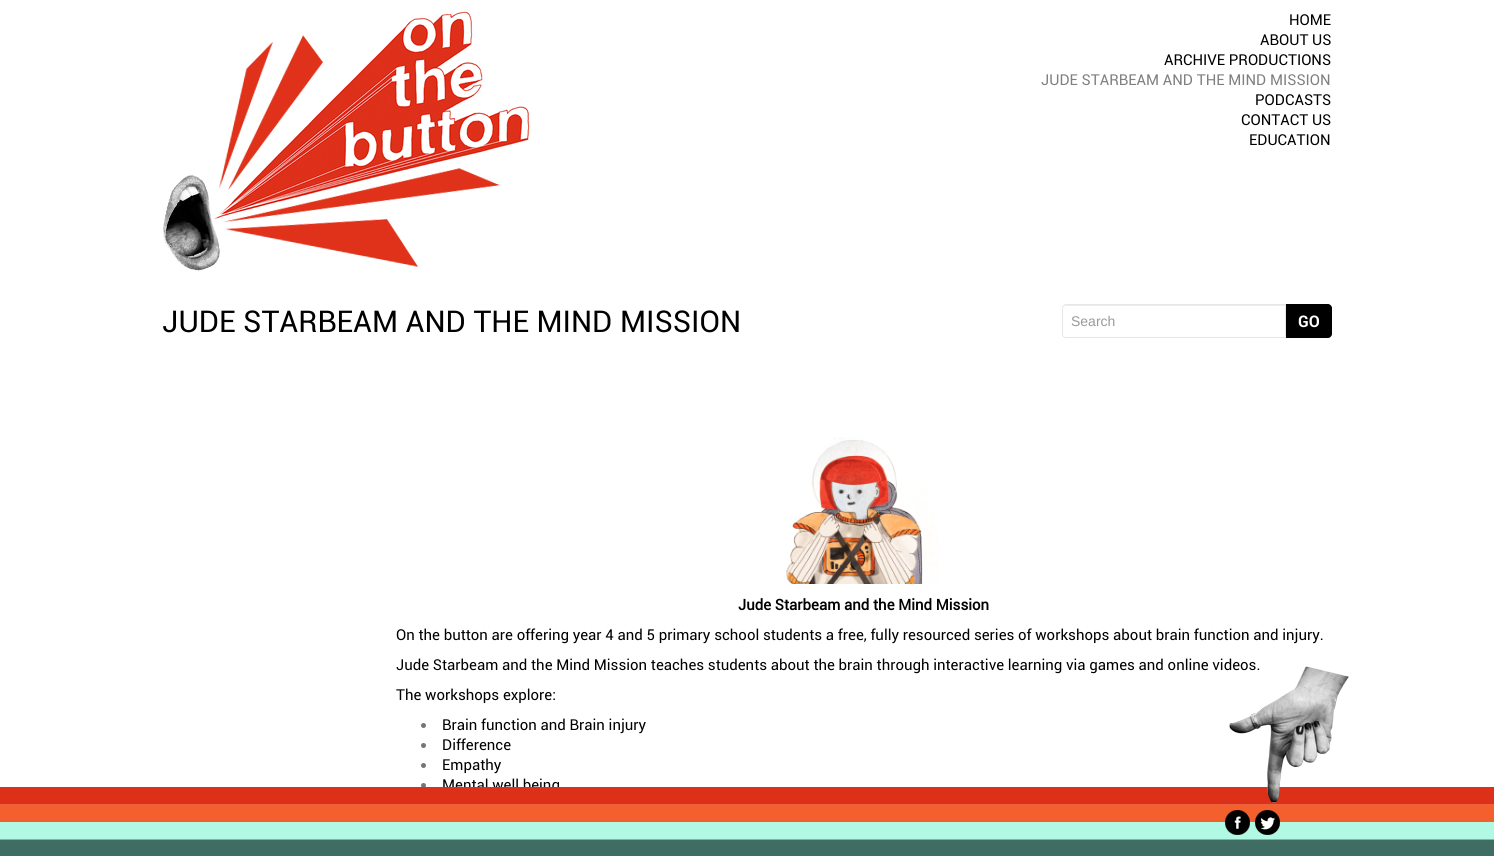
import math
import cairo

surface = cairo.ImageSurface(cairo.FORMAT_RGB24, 1494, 856)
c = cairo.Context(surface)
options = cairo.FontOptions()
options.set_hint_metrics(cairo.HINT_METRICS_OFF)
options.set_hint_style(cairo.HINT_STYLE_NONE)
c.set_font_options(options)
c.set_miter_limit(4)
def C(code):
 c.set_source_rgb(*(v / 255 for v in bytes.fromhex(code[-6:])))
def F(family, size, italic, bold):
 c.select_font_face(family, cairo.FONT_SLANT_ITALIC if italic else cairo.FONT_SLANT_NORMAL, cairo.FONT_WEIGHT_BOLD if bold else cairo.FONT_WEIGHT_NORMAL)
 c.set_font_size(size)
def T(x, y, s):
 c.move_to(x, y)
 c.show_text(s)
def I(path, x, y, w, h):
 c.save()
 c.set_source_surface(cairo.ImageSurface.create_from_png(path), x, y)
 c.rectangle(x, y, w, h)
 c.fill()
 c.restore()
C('ffffff')
c.paint()
I('1.png',163,11,367,260)
F('Roboto',15,0,0)
C('000000')
T(1289,25,'HOME')
T(1260,45,'ABOUT US')
T(1164,65,'ARCHIVE PRODUCTIONS')
C('808080')
T(1041,85,'JUDE STARBEAM AND THE MIND MISSION')
C('000000')
T(1255,105,'PODCASTS')
T(1241,125,'CONTACT US')
T(1249,145,'EDUCATION')
F('Roboto',30,0,0)
T(162,332,'JUDE STARBEAM AND THE MIND MISSION')
C('ececec')
c.new_path()
c.move_to(1066,306)
c.line_to(1285,306)
c.line_to(1285,305)
c.line_to(1066,305)
c.curve_to(1064,305,1063,307,1063,309)
c.curve_to(1063,307,1064,306,1066,306)
c.close_path()
c.fill()
c.new_path()
c.move_to(1066,304.5)
c.line_to(1285.5,304.5)
c.line_to(1285.5,337.5)
c.line_to(1066,337.5)
c.curve_to(1064,337.5,1062.5,336,1062.5,334)
c.line_to(1062.5,308)
c.curve_to(1062.5,306,1064,304.5,1066,304.5)
c.close_path()
C('e4e8ea')
c.set_line_width(1)
c.stroke()
F('Liberation Sans',14,0,0)
C('999999')
T(1071,326,'Search')
C('000000')
c.new_path()
c.move_to(1286,304)
c.line_to(1328,304)
c.curve_to(1330,304,1332,306,1332,308)
c.line_to(1332,334)
c.curve_to(1332,336,1330,338,1328,338)
c.line_to(1286,338)
c.close_path()
c.fill()
F('Roboto',16,0,1)
C('ffffff')
T(1298,327,'GO')
I('2.png',786,437,153,147)
F('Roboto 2',15,0,1)
C('000000')
T(738,610,'Jude Starbeam and the Mind Mission')
F('Roboto',15,0,0)
T(396,640,'On the button are offering year 4 and 5 primary school students a free, fully resourced series of workshops about brain function and injury.')
T(396,670,'Jude Starbeam and the Mind Mission teaches students about the brain through interactive learning via games and online videos.')
T(396,700,'The workshops explore:')
C('767676')
c.new_path()
c.arc(423.5,725.5,2.5,0,2 * math.pi)
c.fill()
C('000000')
T(442,730,'Brain function and Brain injury')
C('767676')
c.new_path()
c.arc(423.5,745.5,2.5,0,2 * math.pi)
c.fill()
C('000000')
T(442,750,'Difference')
C('767676')
c.new_path()
c.arc(423.5,765.5,2.5,0,2 * math.pi)
c.fill()
C('000000')
T(442,770,'Empathy')
C('767676')
c.new_path()
c.arc(423.5,785.5,2.5,0,2 * math.pi)
c.fill()
C('000000')
T(442,790,'Mental well being')
I('3.png',0,787,1494,69)
I('4.png',1229,666,120,137)
I('5.png',1225,810,25,25)
I('6.png',1255,810,25,25)
surface.write_to_png('o.png')
